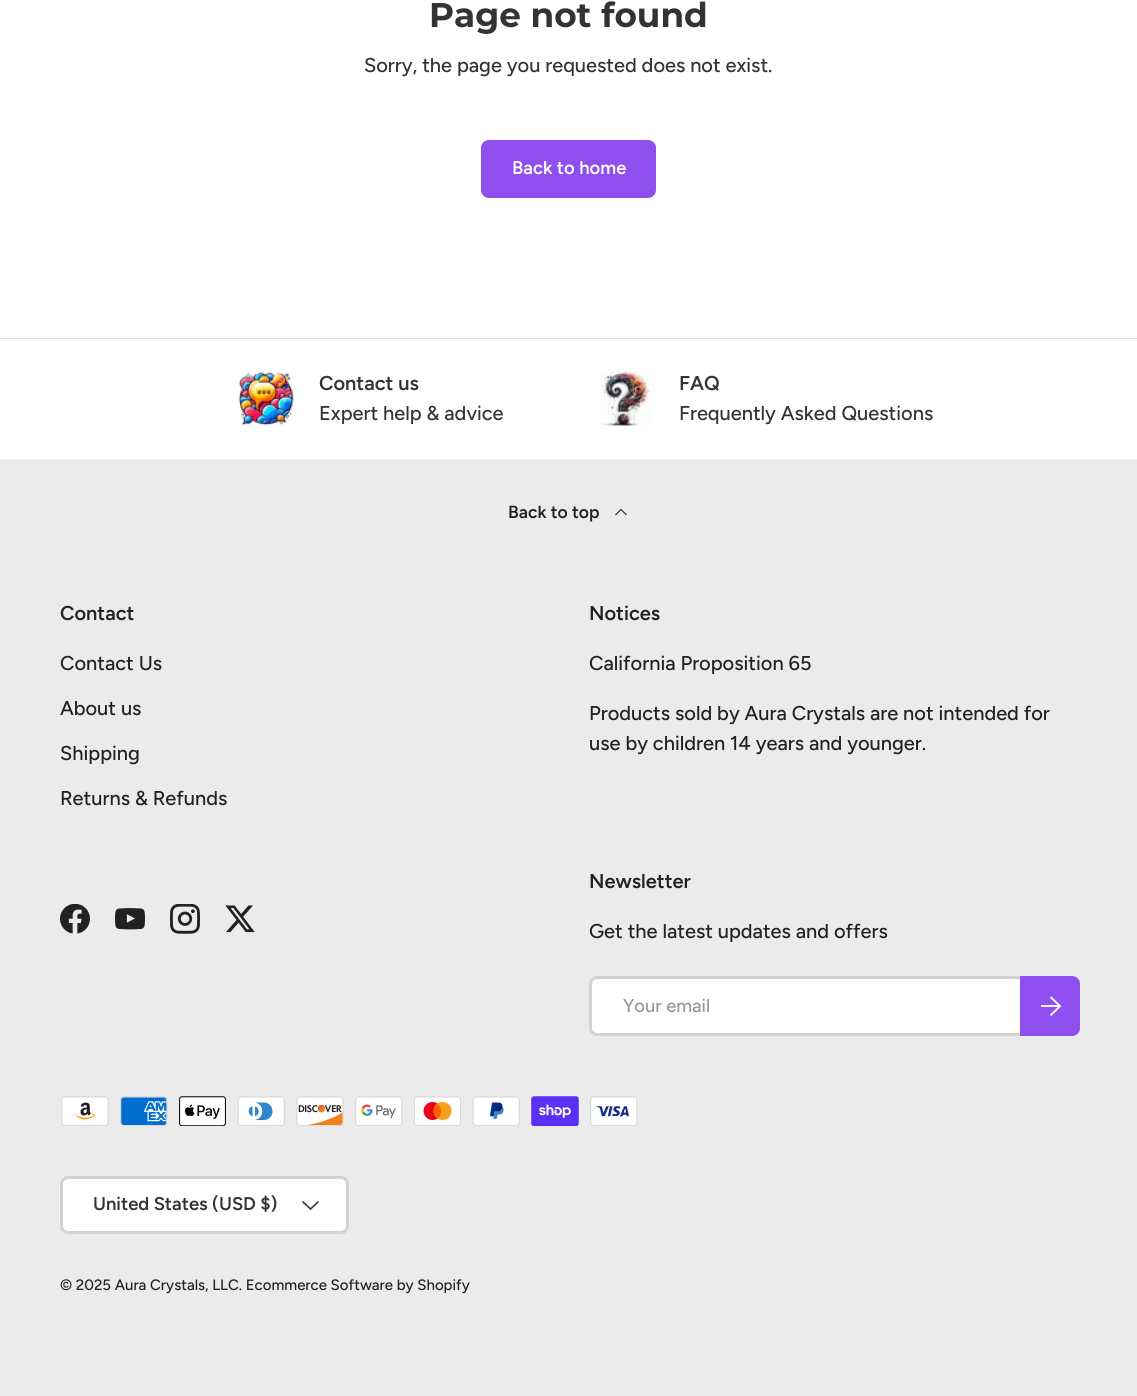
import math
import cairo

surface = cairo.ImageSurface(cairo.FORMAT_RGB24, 1137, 1396)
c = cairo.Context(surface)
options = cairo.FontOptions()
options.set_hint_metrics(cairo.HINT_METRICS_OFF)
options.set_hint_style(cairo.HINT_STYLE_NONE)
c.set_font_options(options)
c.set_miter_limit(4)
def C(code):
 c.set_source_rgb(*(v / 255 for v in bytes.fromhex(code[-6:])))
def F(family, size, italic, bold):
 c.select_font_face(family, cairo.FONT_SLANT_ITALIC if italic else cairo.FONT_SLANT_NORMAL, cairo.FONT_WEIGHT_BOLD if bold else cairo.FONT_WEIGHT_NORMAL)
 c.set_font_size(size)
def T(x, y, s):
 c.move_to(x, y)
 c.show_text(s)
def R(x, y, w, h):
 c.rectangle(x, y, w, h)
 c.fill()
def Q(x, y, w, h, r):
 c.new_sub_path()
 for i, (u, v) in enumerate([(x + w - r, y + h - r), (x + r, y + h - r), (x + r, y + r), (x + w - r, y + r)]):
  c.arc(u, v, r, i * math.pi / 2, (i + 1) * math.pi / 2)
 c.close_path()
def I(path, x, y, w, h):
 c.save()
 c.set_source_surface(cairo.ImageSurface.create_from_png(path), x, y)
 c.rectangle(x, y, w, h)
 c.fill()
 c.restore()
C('ffffff')
c.paint()
F('Montserrat',34.25,0,1)
C('333333')
T(429,27,'Page not found')
F('Figtree Medium',20,0,0)
T(364,72,'Sorry, the page you requested does not exist.')
gradient = cairo.LinearGradient(140,105,648,232)
gradient.add_color_stop_rgba(.6,0.659,0.467,0.949,1)
gradient.add_color_stop_rgba(.6,0.557,0.31,0.933,1)
gradient.add_color_stop_rgba(1,0.557,0.31,0.933,1)
c.set_source(gradient)
Q(481,140,175,58,8)
c.fill()
F('Figtree SemiBold',18.4,0,0)
C('ffffff')
T(512,174,'Back to home')
C('e0e0e0')
R(0,338,1137,1)
I('1.png',238,371,56,56)
F('Figtree SemiBold',20,0,0)
C('333333')
T(319,390,'Contact us')
F('Figtree Medium',20,0,0)
T(319,420,'Expert help & advice')
I('2.png',599,371,53,56)
F('Figtree SemiBold',20,0,0)
T(679,390,'FAQ')
F('Figtree Medium',20,0,0)
T(679,420,'Frequently Asked Questions')
C('ebebeb')
R(0,459,1137,937)
F('Figtree SemiBold',17.5,0,0)
C('222222')
T(508,518,'Back to top')
c.new_path()
c.move_to(615.5,515)
c.line_to(621,509.5)
c.line_to(626.5,515)
c.set_line_width(1.1)
c.stroke()
F('Figtree SemiBold',20,0,0)
T(60,620,'Contact')
F('Figtree Medium',20,0,0)
T(60,670,'Contact Us')
T(60,715,'About us')
T(60,760,'Shipping')
T(60,805,'Returns & Refunds')
F('Figtree SemiBold',20,0,0)
T(589,620,'Notices')
F('Figtree Medium',20,0,0)
T(589,670,'California Proposition 65')
T(589,720,'Products sold by Aura Crystals are not intended for')
T(589,750,'use by children 14 years and younger.')
I('3.png',60,904,30,30)
I('4.png',115,908,30,22)
I('5.png',170,904,30,30)
I('6.png',225,905,30,28)
F('Figtree SemiBold',20,0,0)
T(589,888,'Newsletter')
F('Figtree Medium',20,0,0)
T(589,938,'Get the latest updates and offers')
C('ffffff')
Q(589,976,489,60,8)
c.fill()
Q(590.5,977.5,486,57,6.5)
c.set_source_rgba(0.133,0.133,0.133,0.2)
c.set_line_width(3)
c.stroke()
F('Figtree Medium',18.4,0,0)
C('999999')
T(623,1012,'Your email')
gradient = cairo.LinearGradient(898,983,1082,1029)
gradient.add_color_stop_rgba(.6,0.659,0.467,0.949,1)
gradient.add_color_stop_rgba(.6,0.557,0.31,0.933,1)
gradient.add_color_stop_rgba(1,0.557,0.31,0.933,1)
c.set_source(gradient)
c.new_path()
c.move_to(1020,976)
c.line_to(1072,976)
c.curve_to(1076.5,976,1080,979.5,1080,984)
c.line_to(1080,1028)
c.curve_to(1080,1032.5,1076.5,1036,1072,1036)
c.line_to(1020,1036)
c.close_path()
c.fill()
c.new_path()
c.move_to(1041,1006)
c.line_to(1059,1006)
c.move_to(1050.5,997)
c.line_to(1060,1006)
c.line_to(1050.5,1015.5)
C('ffffff')
c.set_line_width(1.9)
c.stroke()
I('7.png',61,1096,48,30)
I('8.png',120,1096,48,30)
I('9.png',179,1096,47,30)
I('10.png',237,1096,48,30)
I('11.png',296,1096,48,30)
I('12.png',355,1096,48,30)
I('13.png',414,1096,47,30)
I('14.png',472,1096,48,30)
I('15.png',531,1096,48,30)
I('16.png',590,1096,48,30)
Q(60,1176,289,58,8)
c.fill()
Q(61.5,1177.5,286,55,6.5)
c.set_source_rgba(0.133,0.133,0.133,0.2)
c.set_line_width(3)
c.stroke()
F('Figtree SemiBold',18.4,0,0)
C('333333')
T(93,1210,'United States (USD $)')
c.new_path()
c.move_to(318.5,1201.5)
c.line_to(310.5,1209)
c.line_to(302.5,1201.5)
c.set_line_width(1.6)
c.stroke()
F('Figtree Medium',15,0,0)
C('222222')
T(60,1290,'© 2025 Aura Crystals, LLC. Ecommerce Software by Shopify')
surface.write_to_png('o.png')
